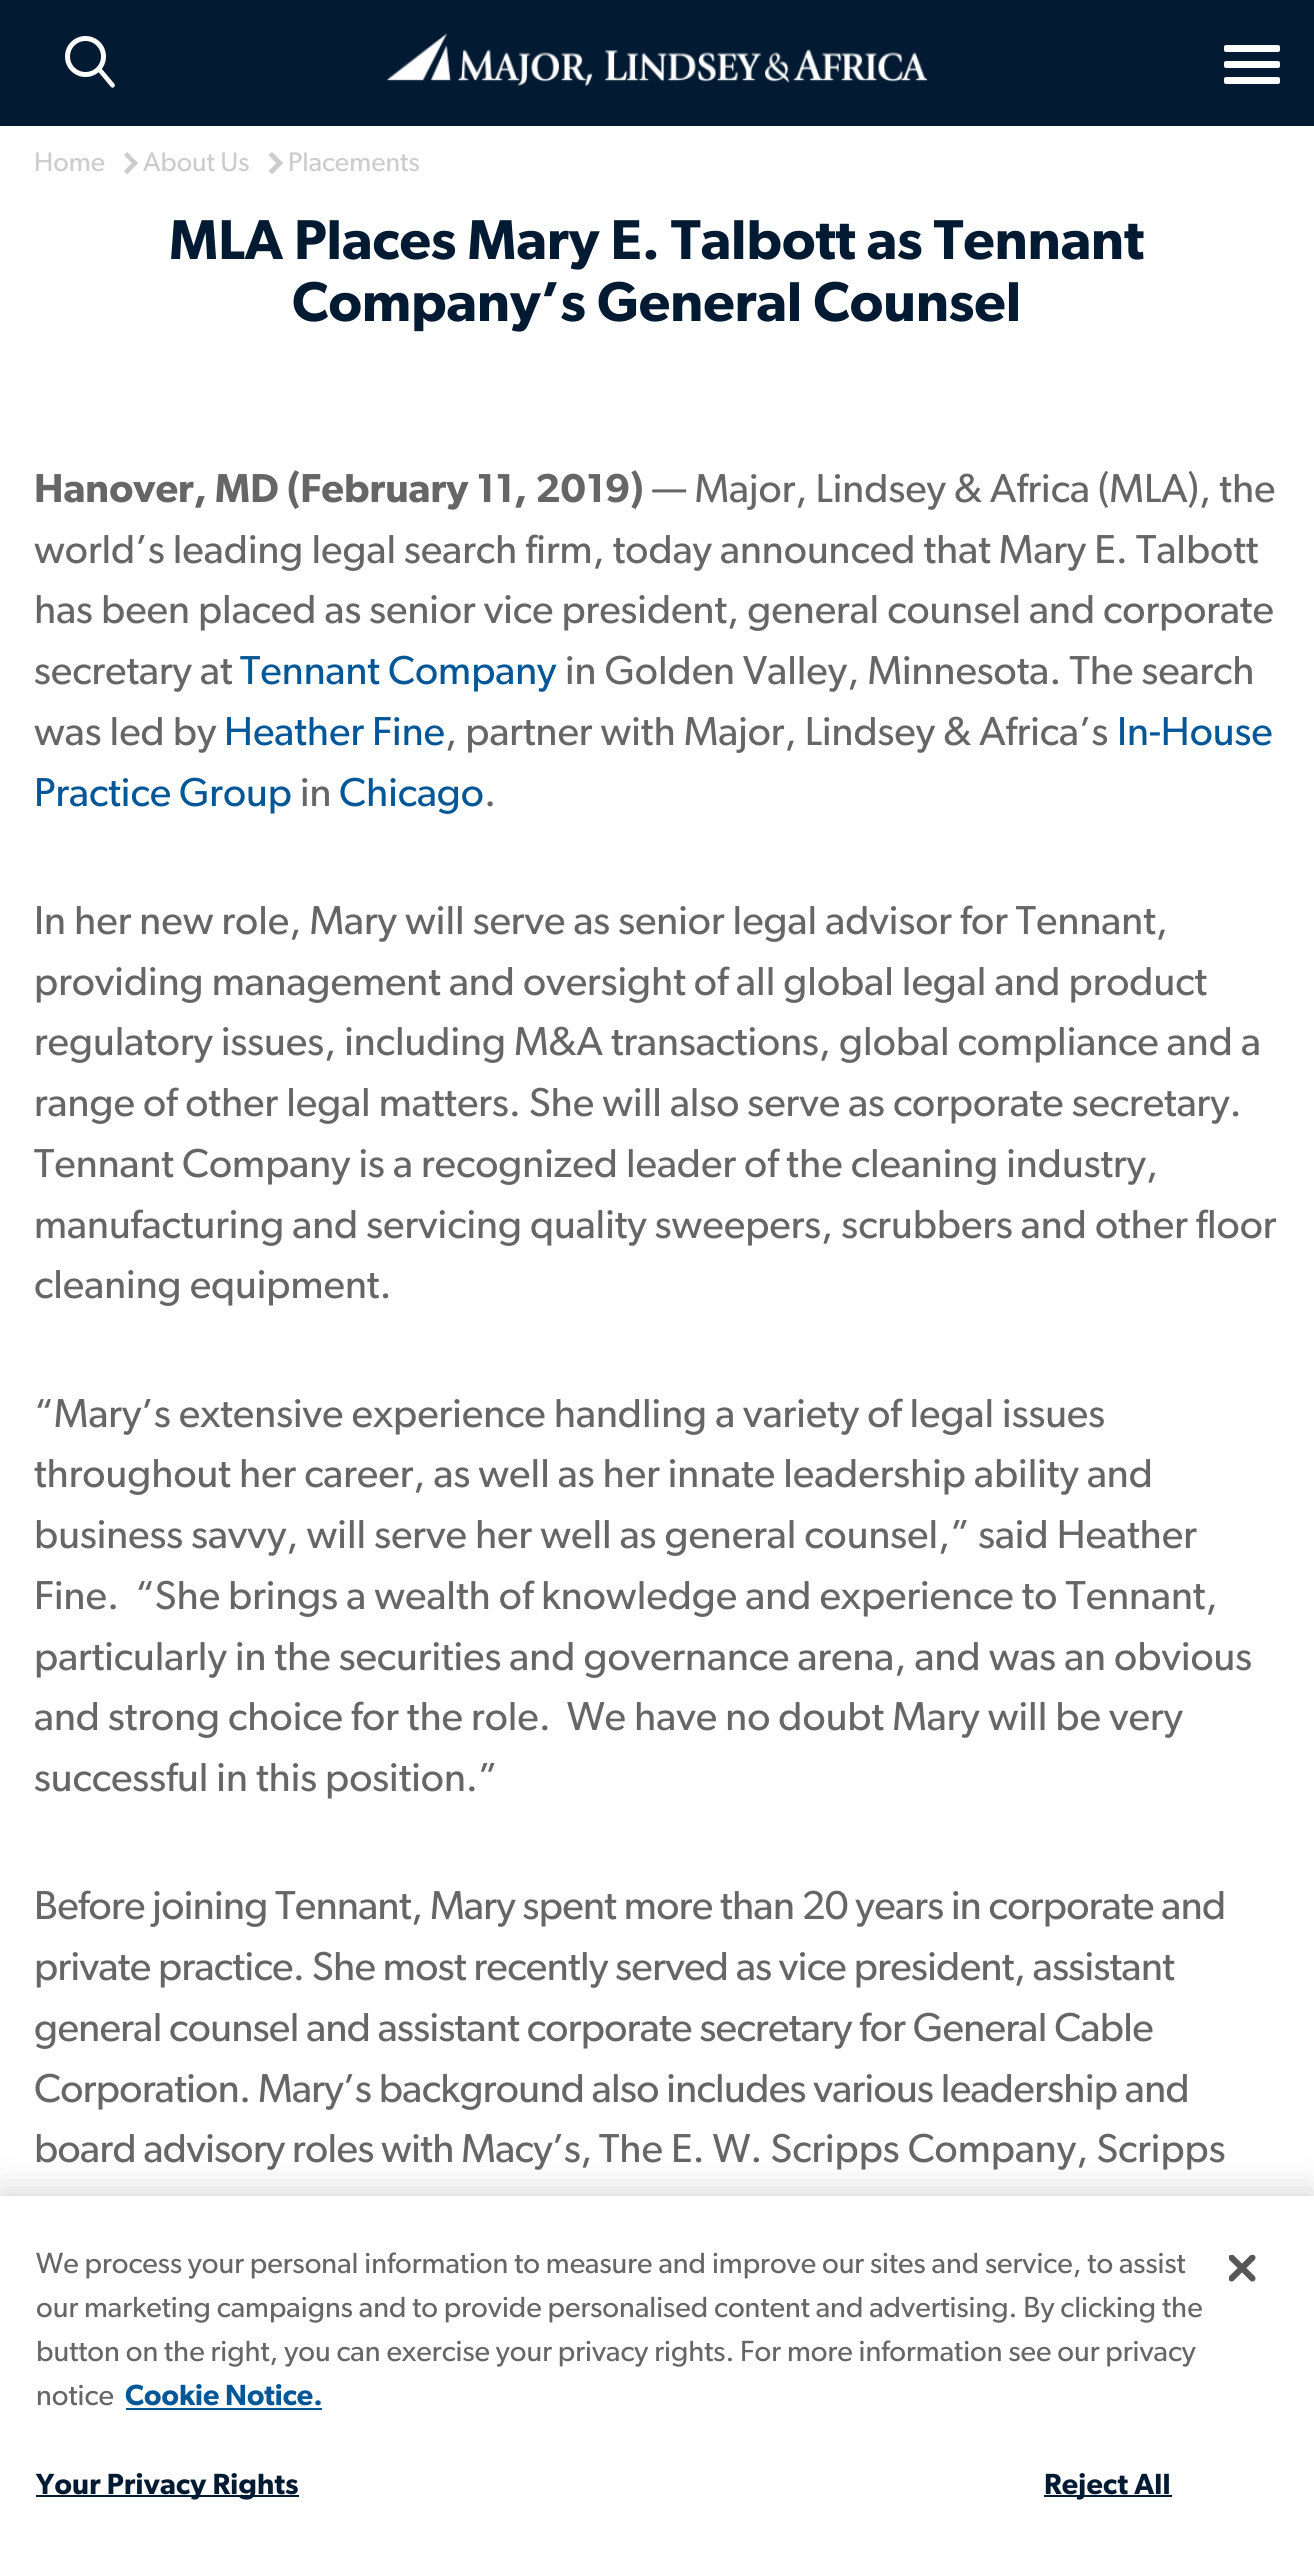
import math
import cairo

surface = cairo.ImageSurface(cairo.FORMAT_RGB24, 1314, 2572)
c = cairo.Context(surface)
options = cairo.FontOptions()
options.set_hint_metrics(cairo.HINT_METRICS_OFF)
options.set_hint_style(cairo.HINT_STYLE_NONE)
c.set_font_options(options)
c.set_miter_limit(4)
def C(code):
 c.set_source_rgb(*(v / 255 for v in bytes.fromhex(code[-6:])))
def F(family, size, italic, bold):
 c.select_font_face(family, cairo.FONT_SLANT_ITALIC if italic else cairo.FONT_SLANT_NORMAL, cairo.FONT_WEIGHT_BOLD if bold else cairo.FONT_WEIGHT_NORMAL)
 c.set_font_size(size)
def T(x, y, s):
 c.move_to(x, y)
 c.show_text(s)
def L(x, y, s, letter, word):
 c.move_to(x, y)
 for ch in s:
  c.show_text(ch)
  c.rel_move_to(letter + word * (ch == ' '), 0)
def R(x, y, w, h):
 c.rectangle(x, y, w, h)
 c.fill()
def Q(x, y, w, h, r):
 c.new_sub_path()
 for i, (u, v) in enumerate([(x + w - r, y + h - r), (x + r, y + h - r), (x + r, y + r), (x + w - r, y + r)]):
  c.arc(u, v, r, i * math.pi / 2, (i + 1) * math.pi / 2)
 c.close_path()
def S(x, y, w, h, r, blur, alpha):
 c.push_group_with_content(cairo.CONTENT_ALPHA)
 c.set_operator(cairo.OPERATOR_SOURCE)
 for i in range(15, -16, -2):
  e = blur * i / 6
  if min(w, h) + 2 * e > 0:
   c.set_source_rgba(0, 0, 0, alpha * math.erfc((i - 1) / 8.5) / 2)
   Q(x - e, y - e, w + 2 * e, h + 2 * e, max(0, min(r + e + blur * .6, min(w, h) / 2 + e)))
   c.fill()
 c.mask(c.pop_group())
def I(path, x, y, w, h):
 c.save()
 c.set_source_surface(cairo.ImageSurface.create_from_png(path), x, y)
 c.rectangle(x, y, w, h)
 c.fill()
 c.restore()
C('ffffff')
c.paint()
C('021a32')
R(0,0,1314,126)
c.arc(85.5,56.5,18,0,2 * math.pi)
C('ffffff')
c.set_line_width(5)
c.stroke()
c.new_path()
c.move_to(114,87)
c.curve_to(113,88,112,88,111,87)
c.line_to(98,71.5)
c.curve_to(97,70.5,97.5,69,98,68)
c.curve_to(99,67.5,100.5,67.5,101.5,68.5)
c.line_to(114.5,84)
c.curve_to(115,85,115,86.5,114,87)
c.close_path()
c.fill()
I('1.png',387,33,540,53)
Q(1224,45,56,7,2)
c.fill()
Q(1224,61,56,7,2)
c.fill()
Q(1224,77,56,7,2)
c.fill()
F('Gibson',27,0,0)
C('cccccc')
T(34,171,'Home')
c.new_path()
c.move_to(124,155)
c.line_to(127,152)
c.line_to(138,163)
c.line_to(135,166.5)
c.close_path()
c.fill()
c.new_path()
c.move_to(124,171)
c.line_to(135,160)
c.line_to(138,163)
c.line_to(127,174.5)
c.close_path()
c.fill()
T(143,171,'About Us')
c.new_path()
c.move_to(268.5,155)
c.line_to(272,152)
c.line_to(283,163)
c.line_to(279.5,166.5)
c.close_path()
c.fill()
c.new_path()
c.move_to(268.5,171)
c.line_to(279.5,160)
c.line_to(283,163)
c.line_to(272,174.5)
c.close_path()
c.fill()
T(288,171,'Placements')
F('Gibson SemiBold',56.25,0,0)
C('021a32')
T(169,259,'MLA Places Mary E. Talbott as Tennant')
T(292,321,'Company’s General Counsel')
F('Gibson SemiBold',40.5,0,0)
C('666666')
T(34,502,'Hanover, MD (February 11, 2019)')
F('Gibson',40.5,0,0)
T(652,502,'— Major, Lindsey & Africa (MLA), the')
T(34,563,'world’s leading legal search firm, today announced that Mary E. Talbott')
T(34,623,'has been placed as senior vice president, general counsel and corporate')
T(34,684,'secretary at')
C('035797')
T(240,684,'Tennant Company')
C('666666')
T(565,684,'in Golden Valley, Minnesota. The search')
T(34,745,'was led by')
C('035797')
T(224,745,'Heather Fine')
C('666666')
T(445,745,', partner with Major, Lindsey & Africa’s')
C('035797')
T(1117,745,'In-House')
T(34,806,'Practice Group')
C('666666')
T(300,806,'in')
C('035797')
T(339,806,'Chicago')
C('666666')
T(484,806,'.')
T(34,934,'In her new role, Mary will serve as senior legal advisor for Tennant,')
T(34,995,'providing management and oversight of all global legal and product')
T(34,1055,'regulatory issues, including M&A transactions, global compliance and a')
T(34,1116,'range of other legal matters. She will also serve as corporate secretary.')
T(34,1177,'Tennant Company is a recognized leader of the cleaning industry,')
T(34,1238,'manufacturing and servicing quality sweepers, scrubbers and other floor')
T(34,1298,'cleaning equipment.')
T(34,1427,'“Mary’s extensive experience handling a variety of legal issues')
T(34,1487,'throughout her career, as well as her innate leadership ability and')
T(34,1548,'business savvy, will serve her well as general counsel,” said Heather')
T(34,1609,'Fine.')
T(135,1609,'“She brings a wealth of knowledge and experience to Tennant,')
T(34,1670,'particularly in the securities and governance arena, and was an obvious')
T(34,1730,'and strong choice for the role.')
T(567,1730,'We have no doubt Mary will be very')
T(34,1791,'successful in this position.”')
L(34,1919,'Before joining Tennant, Mary spent more than 20 years in corporate and',-.6,0)
L(34,1980,'private practice. She most recently served as vice president, assistant',-.6,0)
L(34,2041,'general counsel and assistant corporate secretary for General Cable',-.6,0)
L(34,2102,'Corporation. Mary’s background also includes various leadership and',-.6,0)
L(34,2162,'board advisory roles with Macy’s,',-.6,0)
T(599,2162,'The E. W. Scripps Company, Scripps')
C('000000')
S(0,2196,1314,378,0,20,.2)
C('ffffff')
R(0,2196,1314,376)
F('Gibson',29.25,0,0)
C('666666')
T(36,2273,'We process your personal information to measure and improve our sites and service, to assist')
T(36,2317,'our marketing campaigns and to provide personalised content and advertising. By clicking the')
T(36,2361,'button on the right, you can exercise your privacy rights. For more information see our privacy')
T(36,2405,'notice')
F('Gibson SemiBold',29.25,0,0)
C('035797')
T(125,2405,'Cookie Notice.')
R(126,2408,196,2)
C('021a32')
R(36,2495,263,2)
L(36,2494,'Your Privacy Rights',.25,0)
R(1044,2495,128,2)
L(1044,2494,'Reject All',.25,0)
I('2.png',1229,2255,27,27)
surface.write_to_png('o.png')
